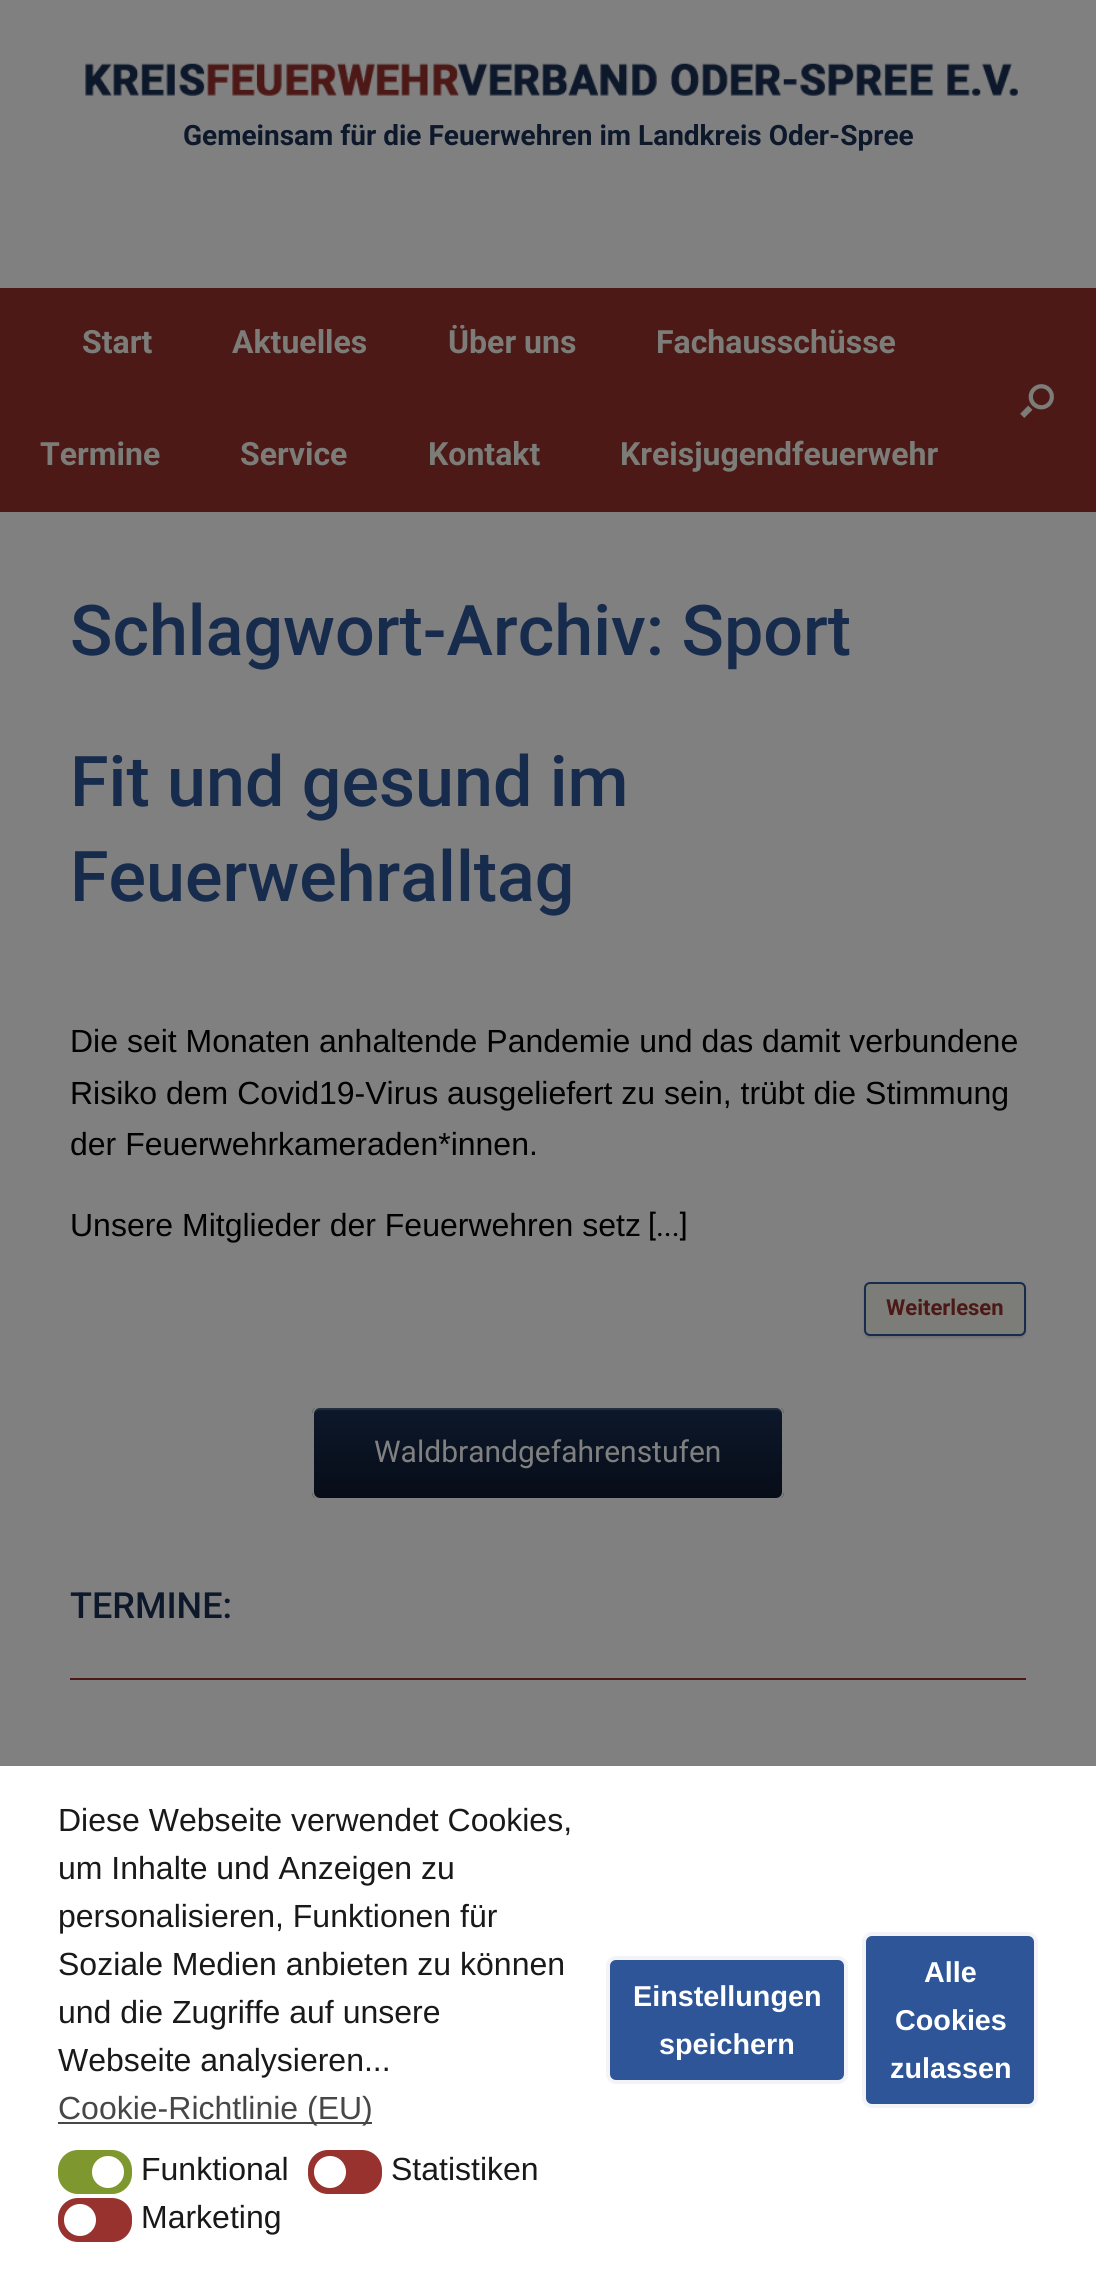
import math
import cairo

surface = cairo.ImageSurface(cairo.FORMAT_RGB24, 1096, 2274)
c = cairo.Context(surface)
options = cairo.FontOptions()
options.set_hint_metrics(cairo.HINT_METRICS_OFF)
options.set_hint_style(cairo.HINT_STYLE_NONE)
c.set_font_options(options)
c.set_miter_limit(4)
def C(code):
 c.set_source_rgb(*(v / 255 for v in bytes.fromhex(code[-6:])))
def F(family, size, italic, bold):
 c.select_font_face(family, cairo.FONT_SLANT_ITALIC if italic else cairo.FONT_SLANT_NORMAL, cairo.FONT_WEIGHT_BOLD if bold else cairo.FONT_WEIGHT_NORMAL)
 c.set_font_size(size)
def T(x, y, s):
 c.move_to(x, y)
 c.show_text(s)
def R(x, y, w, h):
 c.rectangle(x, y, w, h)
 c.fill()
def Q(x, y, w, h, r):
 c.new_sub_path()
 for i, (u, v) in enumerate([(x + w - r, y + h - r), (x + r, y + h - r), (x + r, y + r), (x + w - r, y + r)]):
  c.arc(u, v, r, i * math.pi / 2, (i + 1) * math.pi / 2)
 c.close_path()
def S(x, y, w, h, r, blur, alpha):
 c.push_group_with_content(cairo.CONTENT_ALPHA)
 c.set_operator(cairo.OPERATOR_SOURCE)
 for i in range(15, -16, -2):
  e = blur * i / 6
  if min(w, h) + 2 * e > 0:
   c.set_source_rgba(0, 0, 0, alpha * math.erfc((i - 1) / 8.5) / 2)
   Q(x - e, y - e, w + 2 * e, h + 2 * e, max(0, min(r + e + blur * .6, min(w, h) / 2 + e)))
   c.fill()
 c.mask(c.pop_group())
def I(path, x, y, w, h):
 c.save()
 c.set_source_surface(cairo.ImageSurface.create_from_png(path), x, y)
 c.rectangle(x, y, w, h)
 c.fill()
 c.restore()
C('808080')
c.paint()
I('1.png',85,63,933,33)
F('Roboto',28,0,1)
C('0d182b')
T(183,145,'Gemeinsam für die Feuerwehren im Landkreis Oder-Spree')
C('4c1917')
R(0,288,1096,224)
F('Roboto',32,0,1)
C('7c7d78')
T(82,353,'Start')
T(232,353,'Aktuelles')
T(448,353,'Über uns')
T(656,353,'Fachausschüsse')
T(40,465,'Termine')
T(240,465,'Service')
T(428,465,'Kontakt')
T(620,465,'Kreisjugendfeuerwehr')
I('2.png',1020,384,34,34)
F('Roboto Medium',70,0,0)
C('172b4c')
T(70,655,'Schlagwort-Archiv: Sport')
T(70,806,'Fit und gesund im')
T(70,901,'Feuerwehralltag')
F('Liberation Sans',32,0,0)
C('000000')
T(70,1052,'Die seit Monaten anhaltende Pandemie und das damit verbundene')
T(70,1104,'Risiko dem Covid19-Virus ausgeliefert zu sein, trübt die Stimmung')
T(70,1155,'der Feuerwehrkameraden*innen.')
T(70,1236,'Unsere Mitglieder der Feuerwehren setz')
F('Roboto',30,0,0)
T(648,1236,'[...]')
C('000000')
S(864,1284,162,54,6,1,.12)
C('7c7d78')
Q(865,1283,160,52,5)
c.fill_preserve()
C('172b4c')
c.stroke()
F('Roboto',22,0,1)
C('4c1917')
T(886,1315,'Weiterlesen')
c.save()
Q(312,1406,472,94,8)
c.clip()
gradient = cairo.LinearGradient(314,1498,314,1408)
gradient.add_color_stop_rgba(0,0.027,0.051,0.094,1)
gradient.add_color_stop_rgba(1,0.051,0.094,0.169,1)
c.set_source(gradient)
R(312,1408,472,90)
c.restore()
C('242d3c')
c.new_path()
c.move_to(320,1410)
c.line_to(776,1410)
c.curve_to(780,1410,782,1412,782,1416)
c.curve_to(782,1412,781,1408,776,1408)
c.line_to(320,1408)
c.curve_to(315,1408,314,1412,314,1416)
c.curve_to(314,1412,316,1410,320,1410)
c.close_path()
c.fill()
Q(313,1407,470,92,7)
C('808080')
c.stroke()
F('Roboto',30,0,0)
T(374,1462,'Waldbrandgefahrenstufen')
F('Roboto Medium',36,0,0)
C('0d182b')
T(70,1618,'TERMINE:')
C('4c1917')
R(70,1678,956,2)
C('ffffff')
R(0,1766,1096,508)
F('Liberation Sans',32,0,0)
C('191919')
T(58,1831,'Diese Webseite verwendet Cookies,')
T(58,1879,'um Inhalte und Anzeigen zu')
T(58,1927,'personalisieren, Funktionen für')
T(58,1975,'Soziale Medien anbieten zu können')
T(58,2023,'und die Zugriffe auf unsere')
T(58,2071,'Webseite analysieren...')
C('474747')
R(58,2122,314,2)
T(58,2119,'Cookie-Richtlinie (EU)')
C('7e972e')
Q(58,2150,74,44,20)
c.fill()
C('ffffff')
c.arc(108,2172,16,0,2 * math.pi)
c.fill()
C('191919')
T(141,2180,'Funktional')
C('97322e')
Q(308,2150,74,44,20)
c.fill()
C('ffffff')
c.arc(330,2172,16,0,2 * math.pi)
c.fill()
C('191919')
T(391,2180,'Statistiken')
C('97322e')
Q(58,2198,74,44,20)
c.fill()
C('ffffff')
c.arc(80,2220,16,0,2 * math.pi)
c.fill()
C('191919')
T(141,2228,'Marketing')
C('2e5597')
Q(608,1958,238,124,8)
c.fill_preserve()
C('f2f4f8')
c.set_line_width(4)
c.stroke()
F('Liberation Sans',28.75,0,1)
C('ffffff')
T(633,2006,'Einstellungen')
T(659,2054,'speichern')
C('2e5597')
Q(864,1934,172,172,8)
c.fill_preserve()
C('f2f4f8')
c.stroke()
C('ffffff')
T(924,1982,'Alle')
T(895,2030,'Cookies')
T(890,2078,'zulassen')
surface.write_to_png('o.png')
